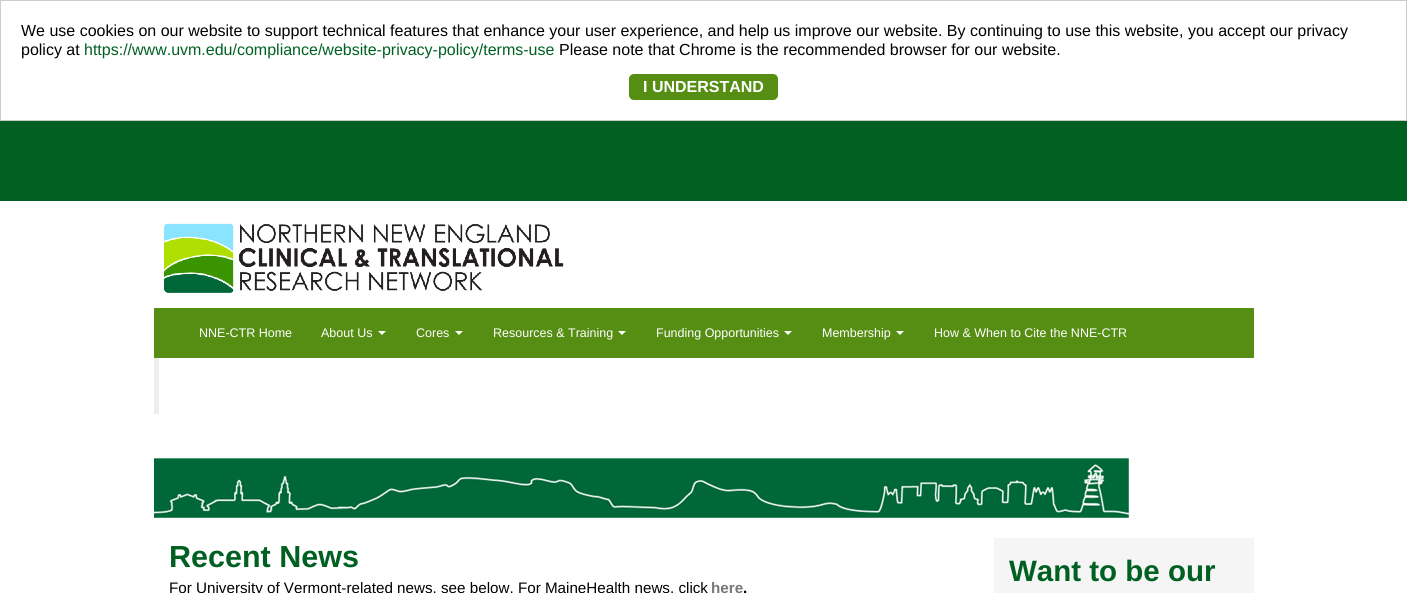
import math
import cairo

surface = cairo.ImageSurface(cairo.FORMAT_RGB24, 1407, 593)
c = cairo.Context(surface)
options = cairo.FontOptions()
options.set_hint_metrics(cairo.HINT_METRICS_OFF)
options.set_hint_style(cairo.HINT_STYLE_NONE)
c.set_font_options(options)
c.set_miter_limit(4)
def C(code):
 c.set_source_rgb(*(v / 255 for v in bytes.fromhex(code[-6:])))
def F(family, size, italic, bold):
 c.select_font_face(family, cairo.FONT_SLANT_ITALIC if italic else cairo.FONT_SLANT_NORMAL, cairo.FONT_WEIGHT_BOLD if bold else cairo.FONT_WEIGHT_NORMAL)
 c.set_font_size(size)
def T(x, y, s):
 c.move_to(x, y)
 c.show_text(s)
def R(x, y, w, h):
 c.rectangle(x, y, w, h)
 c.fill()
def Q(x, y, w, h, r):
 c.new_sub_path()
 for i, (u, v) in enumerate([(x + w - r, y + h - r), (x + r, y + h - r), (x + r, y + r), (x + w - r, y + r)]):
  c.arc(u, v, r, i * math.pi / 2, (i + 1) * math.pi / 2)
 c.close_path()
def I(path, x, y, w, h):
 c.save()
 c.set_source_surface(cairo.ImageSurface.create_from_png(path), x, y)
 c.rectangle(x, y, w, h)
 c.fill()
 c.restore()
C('ffffff')
c.paint()
c.rectangle(.5,.5,1406,120)
C('cccccc')
c.set_line_width(1)
c.stroke()
F('Liberation Sans',16,0,0)
C('000000')
T(21,36,'We use cookies on our website to support technical features that enhance your user experience, and help us improve our website. By continuing to use this website, you accept our privacy')
T(21,55,'policy at')
C('006021')
T(84,55,'https://www.uvm.edu/compliance/website-privacy-policy/terms-use')
C('000000')
T(559,55,'Please note that Chrome is the recommended browser for our website.')
C('558e13')
Q(629,74,149,26,5)
c.fill()
F('Liberation Sans',16,0,1)
C('ffffff')
T(643,92,'I UNDERSTAND')
C('006021')
R(0,121,1407,80)
I('1.png',164,223,400,70)
C('558e13')
R(154,308,1100,50)
F('Liberation Sans',12.5,0,0)
C('ffffff')
T(199,337,'NNE-CTR Home')
T(321,337,'About Us')
c.new_path()
c.move_to(378,331)
c.line_to(386,331)
c.line_to(382,335)
c.close_path()
c.fill()
T(416,337,'Cores')
c.new_path()
c.move_to(455,331)
c.line_to(463,331)
c.line_to(459,335)
c.close_path()
c.fill()
T(493,337,'Resources & Training')
c.new_path()
c.move_to(618,331)
c.line_to(626,331)
c.line_to(622,335)
c.close_path()
c.fill()
T(656,337,'Funding Opportunities')
c.new_path()
c.move_to(784,331)
c.line_to(792,331)
c.line_to(788,335)
c.close_path()
c.fill()
T(822,337,'Membership')
c.new_path()
c.move_to(896,331)
c.line_to(904,331)
c.line_to(900,335)
c.close_path()
c.fill()
T(934,337,'How & When to Cite the NNE-CTR')
C('eeeeee')
R(154,358,5,56)
I('2.png',154,458,975,60)
F('Liberation Sans',30.5,0,1)
C('006021')
T(169,567,'Recent News')
F('Liberation Sans',15.2,0,0)
C('000000')
T(169,593,'For University of Vermont-related news, see below. For MaineHealth news, click')
F('Liberation Sans',15.2,0,1)
C('777777')
T(711,593,'here')
C('000000')
T(743,593,'.')
C('f5f5f5')
R(994,538,260,55)
F('Liberation Sans',29.5,0,1)
C('006021')
T(1009,581,'Want to be our')
surface.write_to_png('o.png')
